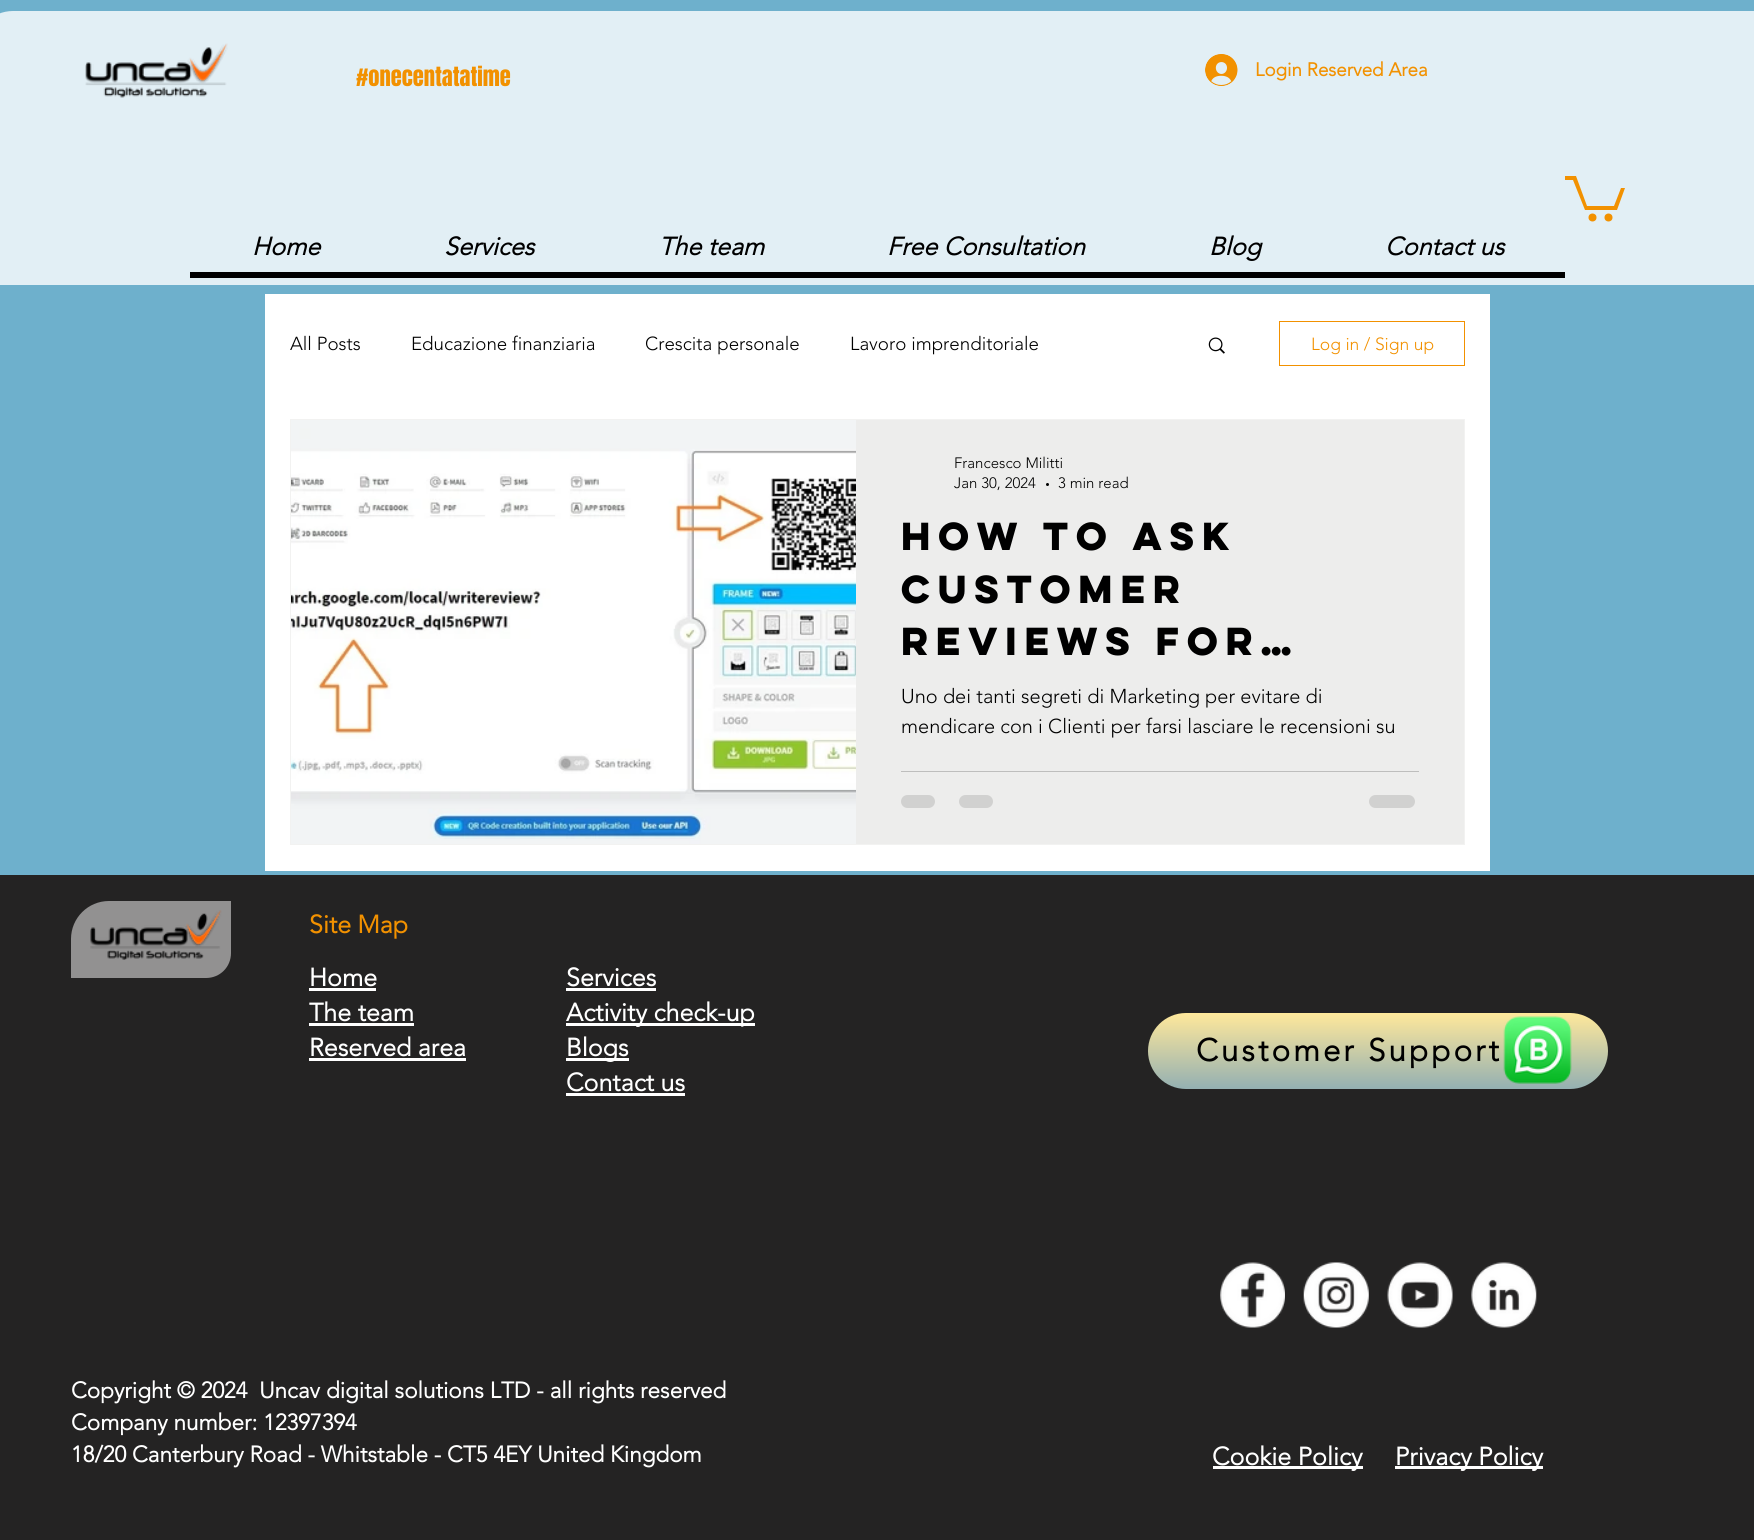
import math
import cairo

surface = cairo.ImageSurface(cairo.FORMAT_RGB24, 1754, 1540)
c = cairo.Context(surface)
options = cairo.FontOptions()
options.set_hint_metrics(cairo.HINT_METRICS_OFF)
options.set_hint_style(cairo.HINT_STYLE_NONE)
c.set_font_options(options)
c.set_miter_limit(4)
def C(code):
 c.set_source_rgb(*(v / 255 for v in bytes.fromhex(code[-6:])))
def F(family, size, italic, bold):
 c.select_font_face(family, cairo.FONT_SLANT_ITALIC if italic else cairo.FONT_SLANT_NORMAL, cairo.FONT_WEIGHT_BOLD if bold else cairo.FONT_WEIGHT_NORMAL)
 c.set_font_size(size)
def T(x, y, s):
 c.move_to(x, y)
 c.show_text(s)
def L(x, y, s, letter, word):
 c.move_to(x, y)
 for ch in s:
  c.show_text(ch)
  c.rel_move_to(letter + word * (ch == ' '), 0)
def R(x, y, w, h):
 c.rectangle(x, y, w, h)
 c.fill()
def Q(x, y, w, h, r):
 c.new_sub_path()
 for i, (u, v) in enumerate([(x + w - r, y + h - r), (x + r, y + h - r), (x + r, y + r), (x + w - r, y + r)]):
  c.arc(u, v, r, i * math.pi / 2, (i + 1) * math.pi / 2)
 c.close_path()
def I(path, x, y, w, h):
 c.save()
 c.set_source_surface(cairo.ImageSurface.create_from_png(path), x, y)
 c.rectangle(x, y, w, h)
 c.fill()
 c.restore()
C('6eb0cc')
c.paint()
C('e2eff5')
c.new_path()
c.move_to(13,11)
c.line_to(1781,11)
c.line_to(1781,260)
c.curve_to(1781,274,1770,285,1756,285)
c.line_to(-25,285)
c.line_to(-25,49)
c.curve_to(-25,28,-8,11,13,11)
c.close_path()
c.fill()
I('1.png',85,43,143,55)
F('Anton',22.5,0,0)
C('f29100')
T(356,86,'#onecentatatime')
I('2.png',1205,54,33,32)
F('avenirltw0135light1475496',18.75,0,1)
T(1255,76,'Login Reserved Area')
c.new_path()
c.move_to(1625,188)
c.line_to(1617,210)
c.line_to(1585,210)
c.line_to(1573,180)
c.line_to(1565,180)
c.line_to(1565,176)
c.line_to(1576,176)
c.line_to(1587,206)
c.line_to(1614,206)
c.line_to(1621,188)
c.fill()
c.arc(1608.5,217.5,4,0,2 * math.pi)
c.fill()
c.arc(1592.5,217.5,4,0,2 * math.pi)
c.fill()
C('000000')
R(190,272,1375,6)
F('avenirltw0135light1475496',25,1,1)
T(252,255,'Home')
T(444,255,'Services')
T(659,255,'The team')
T(887,255,'Free Consultation')
T(1209,255,'Blog')
T(1385,255,'Contact us')
C('ffffff')
R(265,294,1225,577)
F('avenirltw0135light1475496 Light',18.75,0,0)
C('000000')
T(290,350,'All Posts')
T(411,350,'Educazione finanziaria')
T(645,350,'Crescita personale')
T(850,350,'Lavoro imprenditoriale')
I('3.png',1208,337,17,17)
c.rectangle(1279.5,321.5,185,44)
C('f29100')
c.set_line_width(1)
c.stroke()
F('avenirltw0135light1475496 Light',17.5,0,0)
T(1311,350,'Log in / Sign up')
c.rectangle(290.5,419.5,1174,425)
C('f2f2f1')
c.stroke()
I('4.png',291,420,565,424)
C('ededec')
R(856,420,608,424)
F('avenirltw0135light1475496 Light',15,0,0)
C('000000')
T(954,468,'Francesco Militti')
T(954,488,'Jan 30, 2024')
c.new_path()
c.arc(1047.5,484.5,1.5,0,2 * math.pi)
c.fill()
T(1058,488,'3 min read')
F('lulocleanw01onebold',35,0,1)
T(901,550,'HOW TO ASK')
T(901,603,'CUSTOMER')
T(901,655,'REVIEWS FOR…')
F('avenirltw0135light1475496 Light',20,0,0)
T(901,703,'Uno dei tanti segreti di Marketing per evitare di')
T(901,733,'mendicare con i Clienti per farsi lasciare le recensioni su')
C('bebebd')
R(901,771,518,1)
C('d1d1d0')
Q(901,795,34,13,6.5)
c.fill()
Q(959,795,34,13,6.5)
c.fill()
Q(1369,795,46,13,6.5)
c.fill()
C('242323')
R(0,875,1754,665)
C('929191')
c.new_path()
c.move_to(109,901)
c.line_to(231,901)
c.line_to(231,953)
c.curve_to(231,967,220,978,206,978)
c.line_to(71,978)
c.line_to(71,939)
c.curve_to(71,918,88,901,109,901)
c.close_path()
c.fill()
I('5.png',90,910,132,50)
F('avenirltw0135light1475496',25,0,1)
C('f29100')
T(309,933,'Site Map')
C('ffffff')
T(309,986,'Home')
R(309,988,67,3)
T(309,1021,'The team')
R(309,1023,105,3)
T(309,1056,'Reserved area')
R(309,1058,157,3)
T(566,986,'Services')
R(566,988,90,3)
R(566,1023,189,3)
T(566,1021,'Activity check-up')
R(566,1058,63,3)
T(566,1056,'Blogs')
T(566,1091,'Contact us')
R(566,1093,119,3)
gradient = cairo.LinearGradient(1378,1013,1378,1089)
gradient.add_color_stop_rgba(0,1,0.91,0.608,1)
gradient.add_color_stop_rgba(1,0.58,0.69,0.698,1)
c.set_source(gradient)
Q(1148,1013,460,76,38)
c.fill()
F('avenirltw0135light1475496',31.25,0,1)
C('000000')
L(1196,1061,'Customer Support',3.1,0)
I('6.png',1503,1016,69,68)
I('7.png',1220,1262,65,66)
I('8.png',1303,1262,66,66)
I('9.png',1387,1262,66,66)
I('10.png',1471,1262,66,66)
F('avenirltw0135light1475496',22.5,0,1)
C('ffffff')
T(71,1398,'Copyright © 2024  Uncav digital solutions LTD - all rights reserved')
T(71,1430,'Company number: 12397394')
T(71,1462,'18/20 Canterbury Road - Whitstable - CT5 4EY United Kingdom')
R(1213,1466,150,3)
F('avenirltw0135light1475496',25,0,1)
T(1212,1465,'Cookie Policy')
R(1395,1466,148,3)
T(1395,1465,'Privacy Policy')
surface.write_to_png('o.png')
